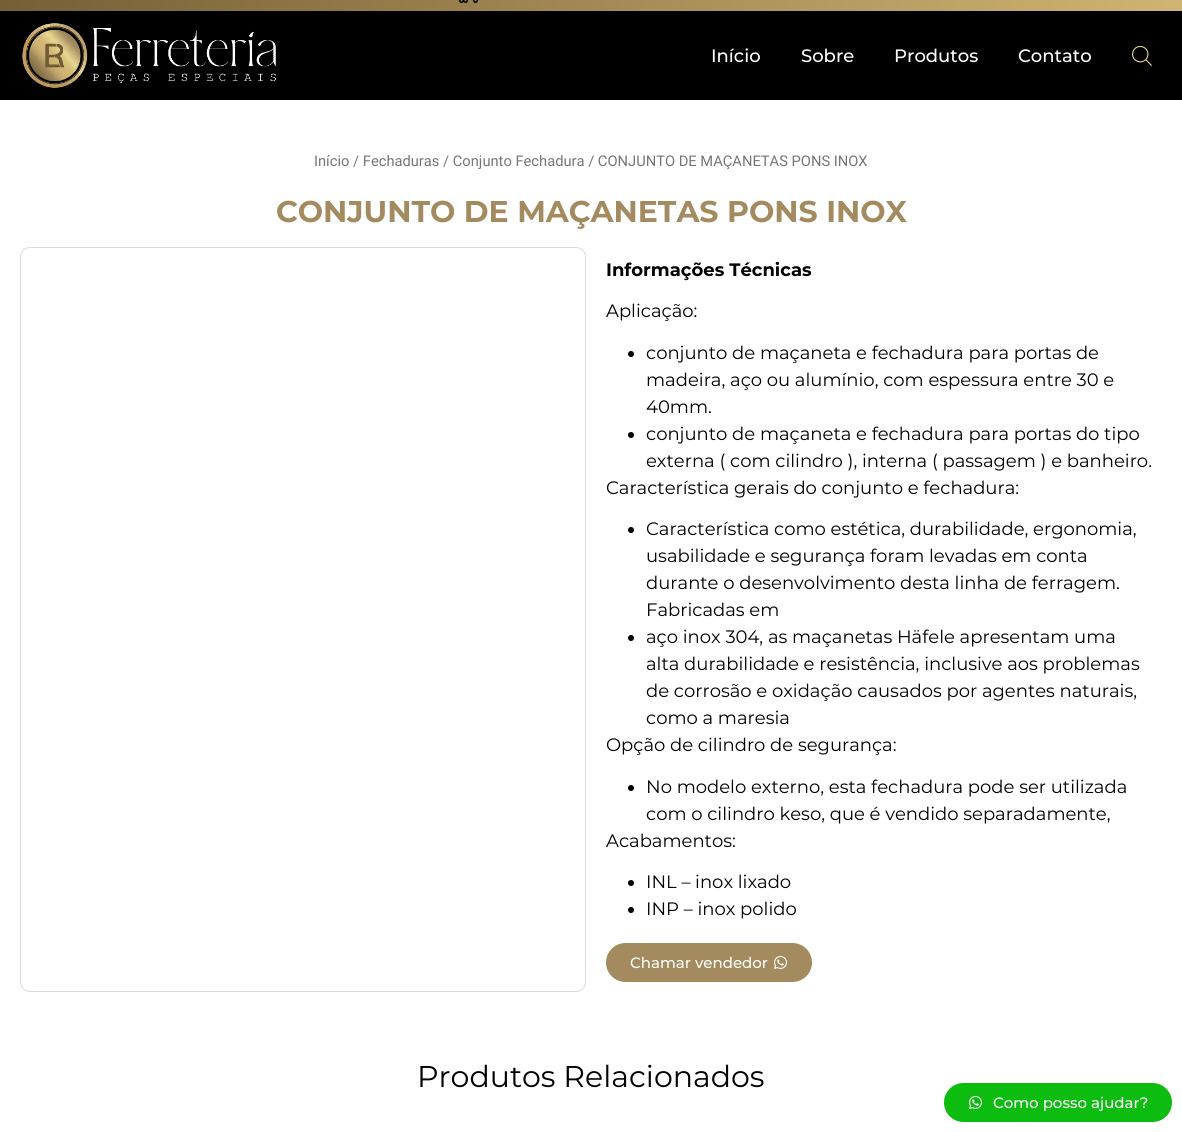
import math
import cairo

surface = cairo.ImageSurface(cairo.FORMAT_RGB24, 1182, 1132)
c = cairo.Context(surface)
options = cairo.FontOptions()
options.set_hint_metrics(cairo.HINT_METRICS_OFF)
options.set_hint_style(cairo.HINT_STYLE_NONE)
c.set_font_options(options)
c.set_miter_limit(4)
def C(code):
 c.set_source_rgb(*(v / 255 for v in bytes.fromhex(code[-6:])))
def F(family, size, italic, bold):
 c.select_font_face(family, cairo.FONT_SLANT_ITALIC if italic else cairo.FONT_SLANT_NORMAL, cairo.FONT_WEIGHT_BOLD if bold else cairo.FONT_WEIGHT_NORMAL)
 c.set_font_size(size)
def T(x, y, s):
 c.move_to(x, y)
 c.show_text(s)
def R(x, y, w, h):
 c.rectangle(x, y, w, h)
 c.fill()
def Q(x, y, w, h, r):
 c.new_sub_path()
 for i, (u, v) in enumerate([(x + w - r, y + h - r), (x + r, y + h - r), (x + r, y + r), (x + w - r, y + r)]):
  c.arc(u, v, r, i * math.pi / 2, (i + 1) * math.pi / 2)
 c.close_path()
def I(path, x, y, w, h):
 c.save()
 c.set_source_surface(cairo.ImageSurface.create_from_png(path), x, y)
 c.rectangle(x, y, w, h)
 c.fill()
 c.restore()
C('ffffff')
c.paint()
gradient = cairo.LinearGradient(124,-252,1058,244)
gradient.add_color_stop_rgba(0,0.455,0.369,0.208,1)
gradient.add_color_stop_rgba(1,0.816,0.706,0.451,1)
c.set_source(gradient)
R(0,0,1182,11)
I('1.png',459,0,19,3)
C('000000')
R(0,11,1182,89)
I('2.png',22,23,254,65)
F('Montserrat Medium',18,0,0)
C('ffffff')
T(711,62,'Início')
T(801,62,'Sobre')
T(894,62,'Produtos')
T(1018,62,'Contato')
I('3.png',1132,46,20,20)
F('Roboto',14.7,0,0)
C('767676')
T(314,166,'Início / Fechaduras / Conjunto Fechadura / CONJUNTO DE MAÇANETAS PONS INOX')
F('Montserrat',30,0,1)
C('a38b5f')
T(276,222,'CONJUNTO DE MAÇANETAS PONS INOX')
Q(20.5,247.5,565,744,9.5)
C('dadada')
c.set_line_width(1)
c.stroke()
F('Montserrat',18,0,1)
C('000000')
T(606,276,'Informações Técnicas')
F('Montserrat',18,0,0)
T(606,317,'Aplicação:')
c.new_path()
c.arc(631,354,3,0,2 * math.pi)
c.fill()
T(646,359,'conjunto de maçaneta e fechadura para portas de')
T(646,386,'madeira, aço ou alumínio, com espessura entre 30 e')
T(646,413,'40mm.')
c.new_path()
c.arc(631,435,3,0,2 * math.pi)
c.fill()
T(646,440,'conjunto de maçaneta e fechadura para portas do tipo')
T(646,467,'externa ( com cilindro ), interna ( passagem ) e banheiro.')
T(606,494,'Característica gerais do conjunto e fechadura:')
c.new_path()
c.arc(631,530,3,0,2 * math.pi)
c.fill()
T(646,535,'Característica como estética, durabilidade, ergonomia,')
T(646,562,'usabilidade e segurança foram levadas em conta')
T(646,589,'durante o desenvolvimento desta linha de ferragem.')
T(646,616,'Fabricadas em')
c.new_path()
c.arc(631,638,3,0,2 * math.pi)
c.fill()
T(646,643,'aço inox 304, as maçanetas Häfele apresentam uma')
T(646,670,'alta durabilidade e resistência, inclusive aos problemas')
T(646,697,'de corrosão e oxidação causados por agentes naturais,')
T(646,724,'como a maresia')
T(606,751,'Opção de cilindro de segurança:')
c.new_path()
c.arc(631,788,3,0,2 * math.pi)
c.fill()
T(646,793,'No modelo externo, esta fechadura pode ser utilizada')
T(646,820,'com o cilindro keso, que é vendido separadamente,')
T(606,847,'Acabamentos:')
c.new_path()
c.arc(631,883,3,0,2 * math.pi)
c.fill()
T(646,888,'INL – inox lixado')
c.new_path()
c.arc(631,910,3,0,2 * math.pi)
c.fill()
T(646,915,'INP – inox polido')
C('a38b5f')
Q(606,943,206,39,19.5)
c.fill()
F('Montserrat Medium',15,0,0)
C('ffffff')
T(630,968,'Chamar vendedor')
I('4.png',774,955,14,14)
F('Montserrat',30,0,0)
C('000000')
T(417,1087,'Produtos Relacionados')
C('0cbd10')
Q(944,1083,228,39,19.5)
c.fill()
I('5.png',969,1095,14,14)
F('Montserrat Medium',15,0,0)
C('ffffff')
T(993,1108,'Como posso ajudar?')
surface.write_to_png('o.png')
